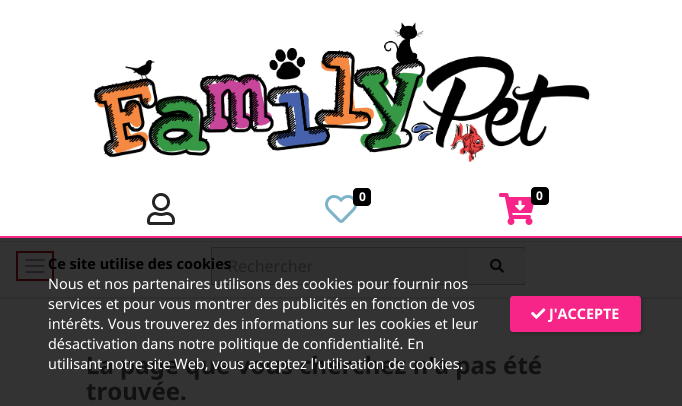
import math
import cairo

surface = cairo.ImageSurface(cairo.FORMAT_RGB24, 682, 406)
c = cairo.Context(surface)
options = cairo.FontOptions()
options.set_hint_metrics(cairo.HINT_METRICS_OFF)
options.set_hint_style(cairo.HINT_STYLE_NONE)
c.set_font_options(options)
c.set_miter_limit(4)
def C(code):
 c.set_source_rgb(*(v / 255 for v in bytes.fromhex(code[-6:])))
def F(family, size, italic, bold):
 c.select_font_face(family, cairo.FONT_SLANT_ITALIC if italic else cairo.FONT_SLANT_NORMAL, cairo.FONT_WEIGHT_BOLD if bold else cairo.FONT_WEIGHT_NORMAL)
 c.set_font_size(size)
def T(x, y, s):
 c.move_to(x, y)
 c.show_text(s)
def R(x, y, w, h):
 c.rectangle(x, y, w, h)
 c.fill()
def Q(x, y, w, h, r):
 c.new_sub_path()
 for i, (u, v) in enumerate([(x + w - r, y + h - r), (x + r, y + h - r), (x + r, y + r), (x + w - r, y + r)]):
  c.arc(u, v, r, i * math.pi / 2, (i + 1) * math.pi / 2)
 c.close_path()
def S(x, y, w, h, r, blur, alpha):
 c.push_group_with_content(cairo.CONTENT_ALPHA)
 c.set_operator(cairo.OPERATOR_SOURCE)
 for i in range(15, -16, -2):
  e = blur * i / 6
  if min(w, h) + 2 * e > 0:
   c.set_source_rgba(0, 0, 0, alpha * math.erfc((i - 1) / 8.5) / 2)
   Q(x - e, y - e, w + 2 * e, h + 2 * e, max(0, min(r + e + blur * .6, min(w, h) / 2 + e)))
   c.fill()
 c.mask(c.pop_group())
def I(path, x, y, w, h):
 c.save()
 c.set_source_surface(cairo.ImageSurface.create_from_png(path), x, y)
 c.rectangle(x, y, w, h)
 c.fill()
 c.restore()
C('ffffff')
c.paint()
C('333333')
R(0,238,682,168)
I('1.png',93,22,497,140)
I('2.png',147,193,28,32)
I('3.png',325,195,32,28)
C('000000')
Q(353,188,18,18,4)
c.fill()
F('Noto Sans',12,0,1)
C('ffffff')
T(359,201,'0')
I('4.png',499,193,35,32)
C('000000')
Q(531,187,18,18,4)
c.fill()
C('ffffff')
T(536,200,'0')
C('2e2e2e')
R(0,241,682,1)
I('5.png',25,259,20,14)
c.rectangle(17,252,36,28)
C('210506')
c.stroke()
C('303030')
c.rectangle(211.5,247.5,313,37)
c.fill_preserve()
C('242424')
c.set_line_width(1)
c.stroke()
F('Noto Sans',16,0,0)
C('1f1f1f')
T(228,272,'Rechercher')
C('313131')
c.new_path()
c.move_to(469,248)
c.line_to(522,248)
c.curve_to(523.5,248,525,249.5,525,251)
c.line_to(525,281)
c.curve_to(525,282.5,523.5,284,522,284)
c.line_to(469,284)
c.close_path()
c.fill()
I('6.png',490,258,14,15)
C('f62587')
R(0,236,682,2)
F('Noto Sans',14.4,0,1)
C('000000')
T(48,269,'Ce site utilise des cookies')
F('Noto Sans',14.4,0,0)
C('ffffff')
T(48,289,'Nous et nos partenaires utilisons des cookies pour fournir nos')
C('2e2e2e')
R(0,297,682,2)
C('ffffff')
T(48,309,'services et pour vous montrer des publicités en fonction de vos')
T(48,329,'intérêts. Vous trouverez des informations sur les cookies et leur')
T(48,349,'désactivation dans notre politique de confidentialité. En')
F('Noto Sans',24,0,1)
C('111111')
T(86,374,'La page que vous cherchez n\'a pas été')
F('Noto Sans',14.4,0,0)
C('ffffff')
T(48,369,'utilisant notre site Web, vous acceptez l\'utilisation de cookies.')
C('000000')
S(512,298,131,36,3,2,.2)
C('f62587')
Q(510.5,296.5,130,35,2.5)
c.fill_preserve()
c.stroke()
I('7.png',531,308,15,11)
F('Noto Sans',14.4,0,1)
C('ffffff')
T(549,319,'J\'ACCEPTE')
F('Noto Sans',24,0,1)
C('111111')
T(86,400,'trouvée.')
surface.write_to_png('o.png')
